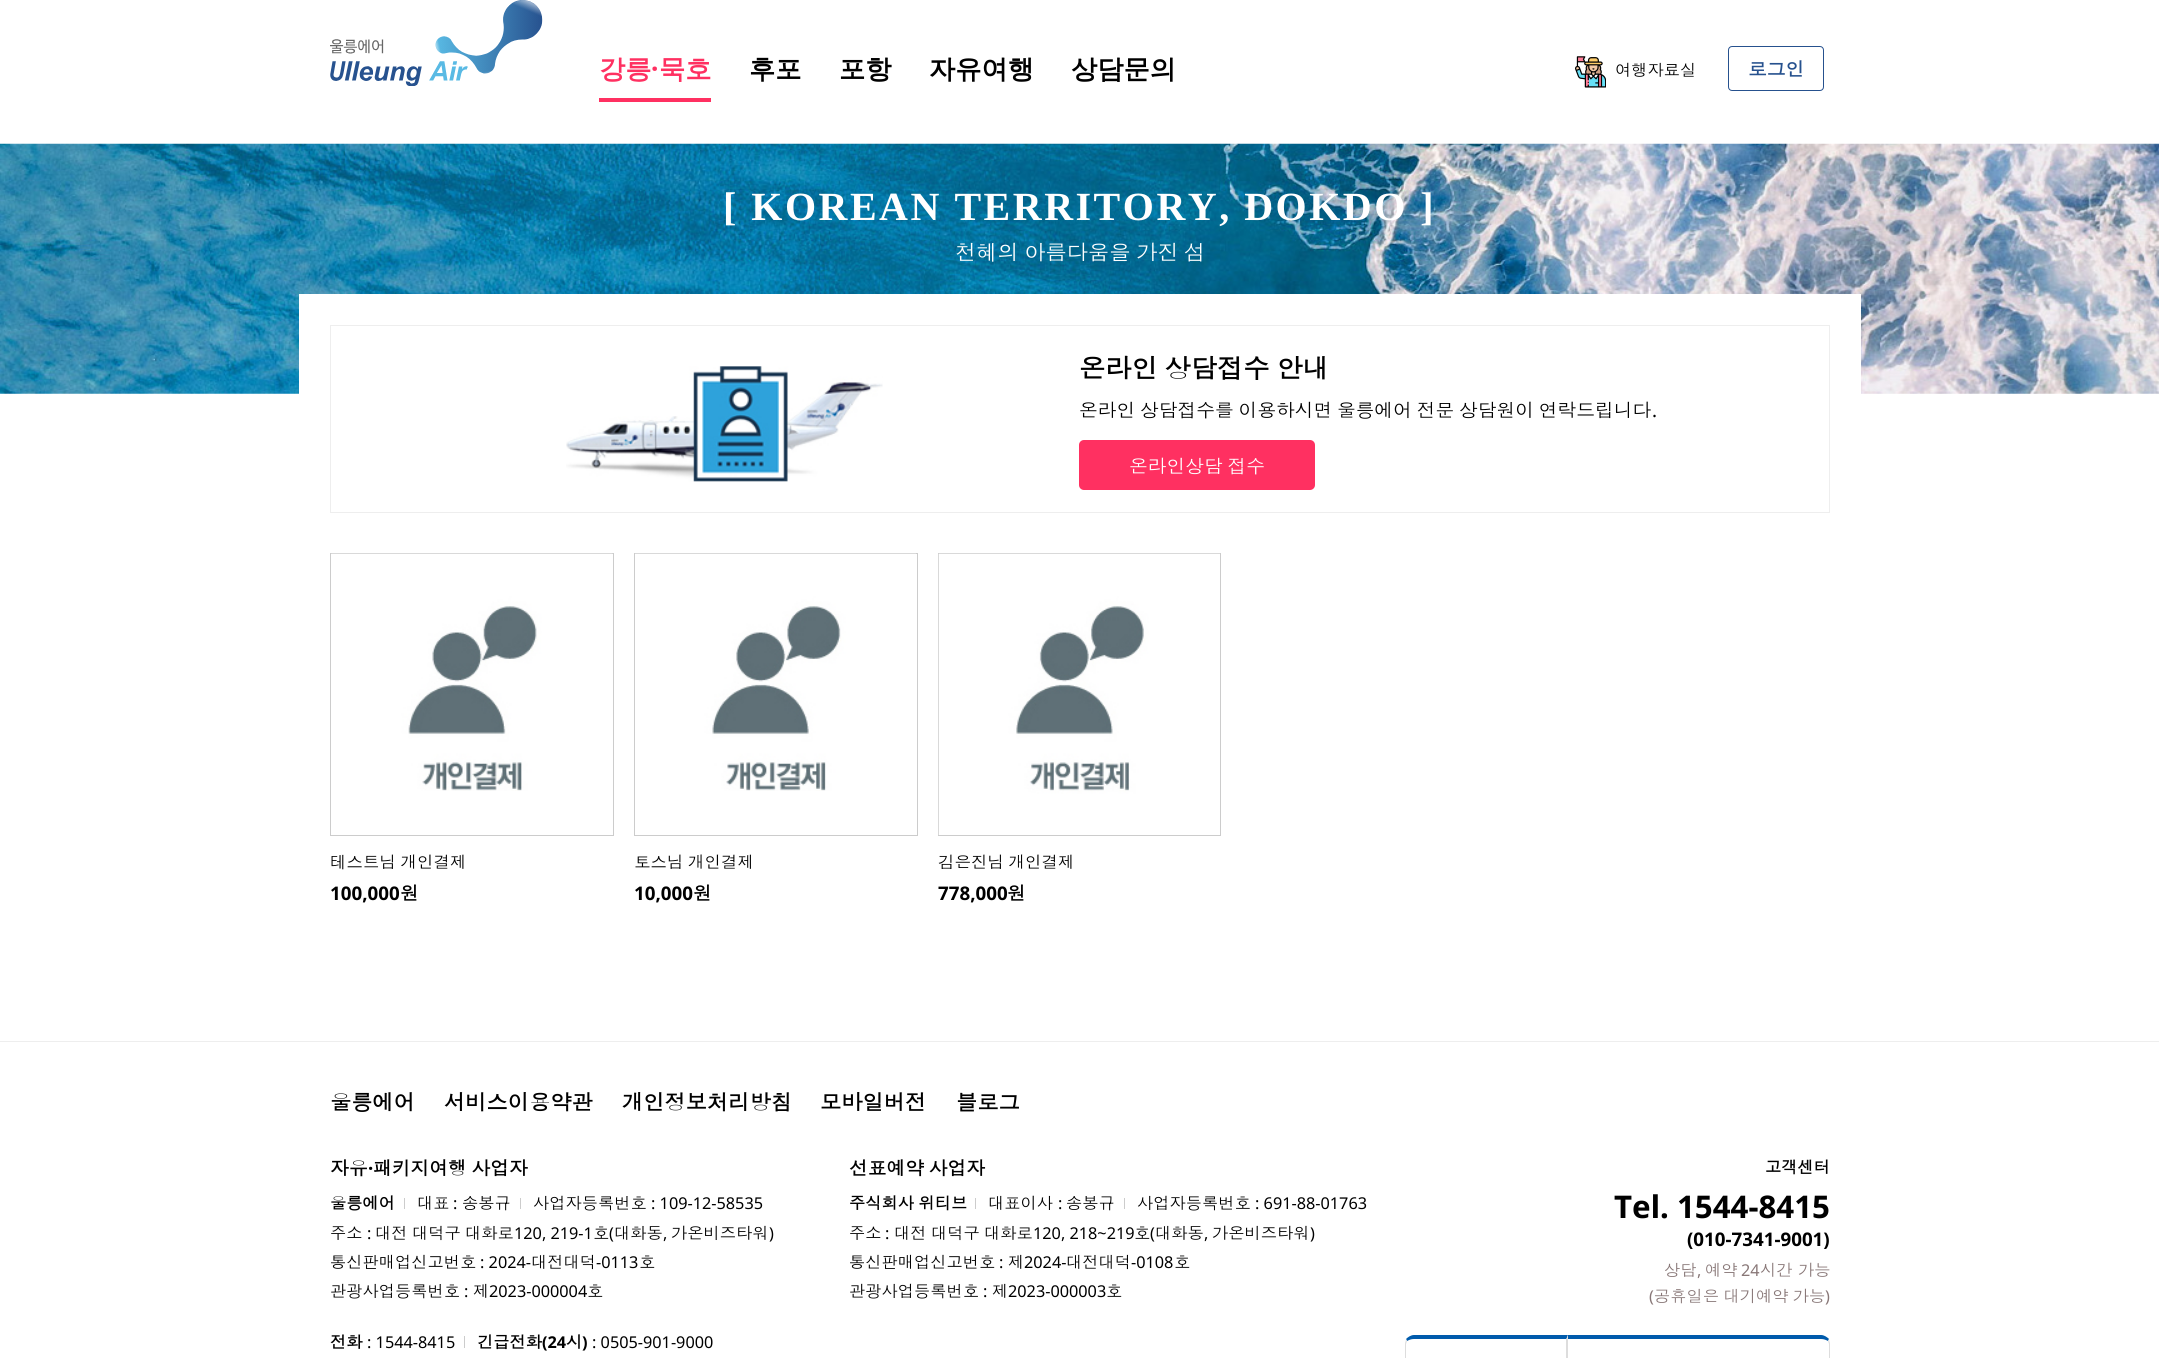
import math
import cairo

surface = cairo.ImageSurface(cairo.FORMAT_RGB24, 2159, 1358)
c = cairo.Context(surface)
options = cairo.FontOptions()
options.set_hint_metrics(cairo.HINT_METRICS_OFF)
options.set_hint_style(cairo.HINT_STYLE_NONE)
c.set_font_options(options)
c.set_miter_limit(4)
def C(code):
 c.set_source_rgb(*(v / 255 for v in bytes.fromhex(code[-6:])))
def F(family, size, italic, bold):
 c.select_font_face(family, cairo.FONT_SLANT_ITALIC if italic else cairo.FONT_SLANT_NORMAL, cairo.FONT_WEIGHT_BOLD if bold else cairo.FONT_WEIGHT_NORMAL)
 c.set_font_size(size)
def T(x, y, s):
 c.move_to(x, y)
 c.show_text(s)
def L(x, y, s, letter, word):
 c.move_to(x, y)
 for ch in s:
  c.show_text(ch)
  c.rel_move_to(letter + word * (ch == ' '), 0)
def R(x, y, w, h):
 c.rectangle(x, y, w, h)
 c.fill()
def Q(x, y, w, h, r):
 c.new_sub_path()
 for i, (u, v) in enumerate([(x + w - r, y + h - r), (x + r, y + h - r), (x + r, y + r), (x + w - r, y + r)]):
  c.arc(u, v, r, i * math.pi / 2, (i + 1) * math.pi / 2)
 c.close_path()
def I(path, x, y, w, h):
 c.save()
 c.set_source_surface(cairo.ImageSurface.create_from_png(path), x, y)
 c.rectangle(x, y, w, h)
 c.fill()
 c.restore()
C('ffffff')
c.paint()
I('1.png',330,0,213,86)
F('WenQuanYi Zen Hei',26.25,0,1)
C('ff3061')
T(599,78,'강릉')
R(599,98,112,4)
F('Noto Sans',26.25,0,1)
T(651,78,'·')
F('WenQuanYi Zen Hei',26.25,0,1)
T(659,78,'묵호')
C('000000')
T(749,78,'후포')
T(839,78,'포항')
T(929,78,'자유여행')
T(1071,78,'상담문의')
I('2.png',1575,56,31,32)
F('Dotum',16.25,0,0)
T(1615,76,'여행자료실')
Q(1728.5,46.5,95,44,3.5)
C('26518e')
c.set_line_width(1)
c.stroke()
F('Dotum',18.75,0,1)
T(1748,76,'로그인')
I('3.png',0,143,2159,251)
F('Liberation Serif',40,0,1)
C('ffffff')
L(723,220,'[ KOREAN TERRITORY, DOKDO ]',2.5,0)
F('Dotum',21.25,0,0)
L(955,260,'천혜의 아름다움을 가진 섬',0,-1.5)
R(299,294,1562,100)
I('4.png',566,366,317,116)
c.rectangle(330.5,325.5,1499,187)
C('eeeeee')
c.stroke()
F('Dotum',26.25,0,1)
C('000000')
L(1079,378,'온라인 상담접수 안내',0,-2)
F('Dotum',18.75,0,0)
L(1079,417,'온라인 상담접수를 이용하시면 울릉에어 전문 상담원이 연락드립니다',0,-1.5)
F('Noto Sans',18.75,0,0)
T(1652,417,'.')
C('ff3061')
Q(1079,440,236,50,5)
c.fill()
F('Dotum',18.75,0,0)
C('ffffff')
L(1129,473,'온라인상담 접수',0,-1.5)
c.rectangle(330.5,553.5,283,282)
C('cccccc')
c.stroke()
I('5.png',331,553,282,238)
F('Dotum',16.5,0,0)
C('000000')
L(330,868,'테스트님 개인결제',0,-1)
F('Noto Sans',18.75,0,1)
T(330,900,'100,000')
F('Dotum',18.75,0,1)
T(400,900,'원')
c.rectangle(634.5,553.5,283,282)
C('cccccc')
c.stroke()
I('6.png',635,553,281,238)
F('Dotum',16.5,0,0)
C('000000')
L(634,868,'토스님 개인결제',0,-1)
F('Noto Sans',18.75,0,1)
T(634,900,'10,000')
F('Dotum',18.75,0,1)
T(693,900,'원')
c.rectangle(938.5,553.5,282,282)
C('cccccc')
c.stroke()
I('7.png',938,553,282,282)
F('Dotum',16.5,0,0)
C('000000')
L(938,868,'김은진님 개인결제',0,-1)
F('Noto Sans',18.75,0,1)
T(938,900,'778,000')
F('Dotum',18.75,0,1)
T(1007,900,'원')
C('eeeeee')
R(0,1041,2159,1)
F('Dotum',21.25,0,1)
C('000000')
T(330,1110,'울릉에어')
T(444,1110,'서비스이용약관')
T(622,1110,'개인정보처리방침')
T(820,1110,'모바일버전')
T(956,1110,'블로그')
F('Dotum',18.75,0,1)
T(330,1175,'자유')
F('Noto Sans',18.75,0,1)
T(368,1175,'·')
F('Dotum',18.75,0,1)
L(373,1175,'패키지여행 사업자',0,-1.5)
F('Dotum',16.25,0,1)
T(330,1209,'울릉에어')
C('cccccc')
R(404,1198,1,11)
F('Dotum',16.25,0,0)
C('000000')
T(417,1209,'대표')
F('Noto Sans',16.25,0,0)
T(453,1209,':')
F('Dotum',16.25,0,0)
T(462,1209,'송봉규')
C('cccccc')
R(520,1198,1,11)
C('000000')
T(533,1209,'사업자등록번호')
F('Noto Sans',16.25,0,0)
T(651,1209,': 109-12-58535')
F('Dotum',16.25,0,0)
T(330,1239,'주소')
F('Noto Sans',16.25,0,0)
T(367,1239,':')
F('Dotum',16.25,0,0)
T(375,1239,'대전')
T(412,1239,'대덕구')
T(465,1239,'대화로')
F('Noto Sans',16.25,0,0)
T(514,1239,'120, 219-1')
F('Dotum',16.25,0,0)
T(593,1239,'호')
F('Noto Sans',16.25,0,0)
T(609,1239,'(')
F('Dotum',16.25,0,0)
T(614,1239,'대화동')
F('Noto Sans',16.25,0,0)
T(663,1239,',')
F('Dotum',16.25,0,0)
T(671,1239,'가온비즈타워')
F('Noto Sans',16.25,0,0)
T(769,1239,')')
F('Dotum',16.25,0,0)
T(330,1268,'통신판매업신고번호')
F('Noto Sans',16.25,0,0)
T(480,1268,': 2024-')
F('Dotum',16.25,0,0)
T(531,1268,'대전대덕')
F('Noto Sans',16.25,0,0)
T(596,1268,'-0113')
F('Dotum',16.25,0,0)
T(639,1268,'호')
T(330,1297,'관광사업등록번호')
F('Noto Sans',16.25,0,0)
T(464,1297,':')
F('Dotum',16.25,0,0)
T(473,1297,'제')
F('Noto Sans',16.25,0,0)
T(489,1297,'2023-000004')
F('Dotum',16.25,0,0)
T(587,1297,'호')
F('Dotum',18.75,0,1)
L(849,1175,'선표예약 사업자',0,-1.5)
F('Dotum',16.25,0,1)
L(849,1209,'주식회사 위티브',0,-1)
C('cccccc')
R(975,1198,1,11)
F('Dotum',16.25,0,0)
C('000000')
T(988,1209,'대표이사')
F('Noto Sans',16.25,0,0)
T(1058,1209,':')
F('Dotum',16.25,0,0)
T(1066,1209,'송봉규')
C('cccccc')
R(1124,1198,1,11)
C('000000')
T(1137,1209,'사업자등록번호')
F('Noto Sans',16.25,0,0)
T(1255,1209,': 691-88-01763')
F('Dotum',16.25,0,0)
T(849,1239,'주소')
F('Noto Sans',16.25,0,0)
T(885,1239,':')
F('Dotum',16.25,0,0)
T(894,1239,'대전')
T(931,1239,'대덕구')
T(984,1239,'대화로')
F('Noto Sans',16.25,0,0)
T(1033,1239,'120, 218~219')
F('Dotum',16.25,0,0)
T(1134,1239,'호')
F('Noto Sans',16.25,0,0)
T(1150,1239,'(')
F('Dotum',16.25,0,0)
T(1155,1239,'대화동')
F('Noto Sans',16.25,0,0)
T(1204,1239,',')
F('Dotum',16.25,0,0)
T(1212,1239,'가온비즈타워')
F('Noto Sans',16.25,0,0)
T(1310,1239,')')
F('Dotum',16.25,0,0)
T(849,1268,'통신판매업신고번호')
F('Noto Sans',16.25,0,0)
T(999,1268,':')
F('Dotum',16.25,0,0)
T(1008,1268,'제')
F('Noto Sans',16.25,0,0)
T(1024,1268,'2024-')
F('Dotum',16.25,0,0)
T(1066,1268,'대전대덕')
F('Noto Sans',16.25,0,0)
T(1131,1268,'-0108')
F('Dotum',16.25,0,0)
T(1174,1268,'호')
T(849,1297,'관광사업등록번호')
F('Noto Sans',16.25,0,0)
T(983,1297,':')
F('Dotum',16.25,0,0)
T(992,1297,'제')
F('Noto Sans',16.25,0,0)
T(1008,1297,'2023-000003')
F('Dotum',16.25,0,0)
T(1106,1297,'호')
F('Dotum',16.25,0,1)
T(330,1348,'전화')
F('Noto Sans',16.25,0,0)
T(367,1348,': 1544-8415')
C('cccccc')
R(464,1336,1,12)
F('Dotum',16.25,0,1)
C('000000')
T(477,1348,'긴급전화')
F('Noto Sans',16.25,0,1)
T(542,1348,'(24')
F('Dotum',16.25,0,1)
T(566,1348,'시')
F('Noto Sans',16.25,0,1)
T(582,1348,')')
F('Noto Sans',16.25,0,0)
T(592,1348,': 0505-901-9000')
F('Dotum',16.25,0,1)
T(1765,1173,'고객센터')
F('Noto Sans',31.25,0,1)
T(1614,1218,'Tel. 1544-8415')
F('Noto Sans',18.75,0,1)
T(1687,1246,'(010-7341-9001)')
F('Dotum',16.25,0,0)
C('887777')
T(1664,1276,'상담')
T(1705,1276,'예약')
F('Noto Sans',16.25,0,0)
T(1741,1276,'24')
F('Dotum',16.25,0,0)
T(1760,1276,'시간 가능')
F('Noto Sans',16.25,0,0)
T(1697,1276,',')
T(1649,1302,'(')
F('Dotum',16.25,0,0)
L(1654,1302,'공휴일은 대기예약 가능',0,-1)
F('Noto Sans',16.25,0,0)
T(1825,1302,')')
C('005bac')
c.new_path()
c.move_to(1414,1335)
c.curve_to(1411,1335,1408,1337,1406,1339)
c.line_to(1407,1341)
c.curve_to(1409,1340,1411,1339,1414,1339)
c.line_to(1566,1339)
c.line_to(1566,1340)
c.line_to(1568,1335)
c.close_path()
c.fill()
C('dddddd')
c.new_path()
c.move_to(1568,1335)
c.line_to(1568,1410)
c.line_to(1566,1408)
c.line_to(1566,1340)
c.close_path()
c.fill()
c.new_path()
c.move_to(1405,1344)
c.line_to(1405,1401)
c.curve_to(1405,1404,1406,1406,1408,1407)
c.line_to(1408,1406)
c.line_to(1406,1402)
c.line_to(1406,1344)
c.line_to(1407,1341)
c.line_to(1406,1339)
c.curve_to(1406,1341,1405,1342,1405,1344)
c.close_path()
c.fill()
C('005bac')
c.new_path()
c.move_to(1568,1335)
c.line_to(1821,1335)
c.curve_to(1824,1335,1827,1337,1829,1339)
c.line_to(1828,1341)
c.curve_to(1826,1340,1824,1339,1821,1339)
c.line_to(1568,1339)
c.close_path()
c.fill()
C('dddddd')
c.new_path()
c.move_to(1826,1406)
c.line_to(1829,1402)
c.line_to(1829,1344)
c.line_to(1828,1341)
c.line_to(1829,1339)
c.curve_to(1829,1341,1830,1342,1830,1344)
c.line_to(1830,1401)
c.curve_to(1830,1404,1829,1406,1827,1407)
c.close_path()
c.fill()
surface.write_to_png('o.png')
